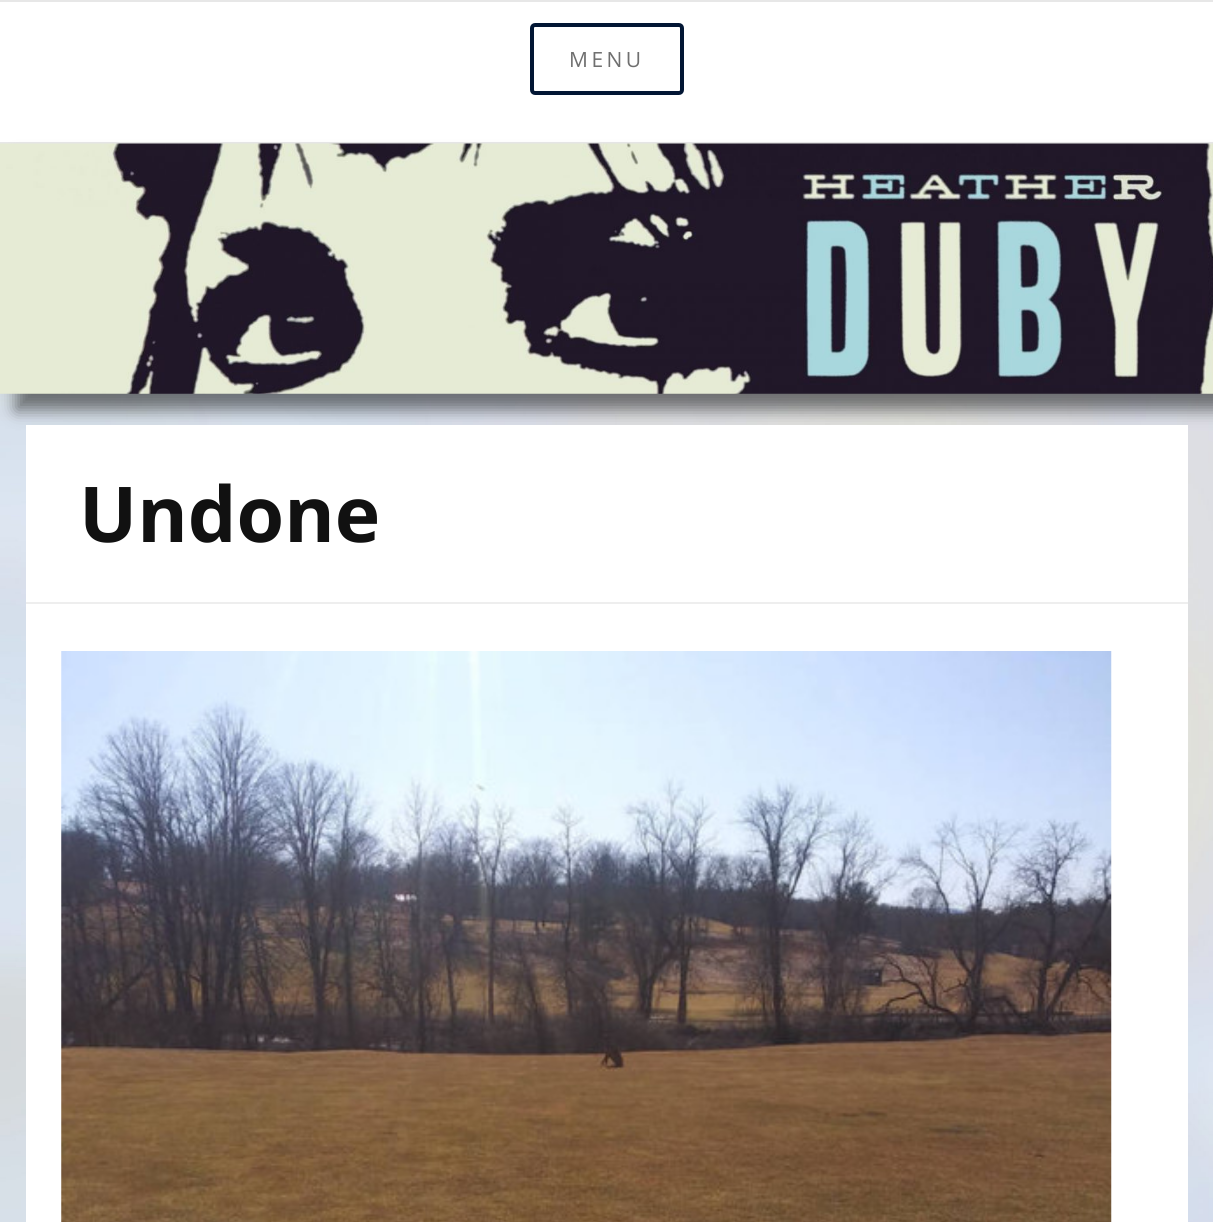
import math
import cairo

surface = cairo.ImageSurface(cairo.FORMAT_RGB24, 1213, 1222)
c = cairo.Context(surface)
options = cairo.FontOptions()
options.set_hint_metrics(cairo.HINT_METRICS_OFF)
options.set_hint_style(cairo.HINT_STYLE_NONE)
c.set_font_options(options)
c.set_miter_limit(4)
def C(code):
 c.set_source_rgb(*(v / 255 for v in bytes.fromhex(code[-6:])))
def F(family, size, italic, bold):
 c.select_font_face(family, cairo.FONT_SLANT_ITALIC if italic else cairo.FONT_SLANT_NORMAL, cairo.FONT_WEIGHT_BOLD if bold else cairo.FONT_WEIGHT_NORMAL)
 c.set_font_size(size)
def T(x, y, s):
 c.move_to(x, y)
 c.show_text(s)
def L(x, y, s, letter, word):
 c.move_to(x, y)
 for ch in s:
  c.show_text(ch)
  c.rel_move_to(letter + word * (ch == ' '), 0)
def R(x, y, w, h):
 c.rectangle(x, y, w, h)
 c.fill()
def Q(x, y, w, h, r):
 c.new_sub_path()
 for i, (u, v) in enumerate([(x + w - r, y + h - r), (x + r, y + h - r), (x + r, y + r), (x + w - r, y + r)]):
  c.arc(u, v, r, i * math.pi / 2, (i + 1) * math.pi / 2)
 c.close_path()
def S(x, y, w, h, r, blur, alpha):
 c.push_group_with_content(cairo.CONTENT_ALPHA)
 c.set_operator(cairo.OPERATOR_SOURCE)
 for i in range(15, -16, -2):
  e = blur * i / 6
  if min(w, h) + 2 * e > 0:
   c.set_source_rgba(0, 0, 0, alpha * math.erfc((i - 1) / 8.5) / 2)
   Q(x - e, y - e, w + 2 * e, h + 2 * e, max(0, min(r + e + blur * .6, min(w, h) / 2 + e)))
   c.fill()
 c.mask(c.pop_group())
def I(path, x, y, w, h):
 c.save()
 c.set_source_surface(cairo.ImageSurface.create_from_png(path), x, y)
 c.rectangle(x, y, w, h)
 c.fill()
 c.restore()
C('ffffff')
c.paint()
I('1.png',0,393,1213,829)
C('e7e7e7')
R(0,0,1213,2)
R(0,142,1213,2)
Q(532,25,150,68,3)
C('021634')
c.set_line_width(4)
c.stroke()
F('Open Sans',21,0,0)
C('6f6f6f')
L(569,67,'MENU',3.5,0)
C('000000')
S(16,159,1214,251,0,8,.5)
I('2.png',0,143,1213,251)
C('ffffff')
R(26,425,1162,177)
C('eeeeee')
R(26,602,1162,2)
F('Open Sans',77,0,1)
C('111111')
T(79,542,'Undone')
C('ffffff')
R(26,604,1162,618)
I('3.png',61,651,1051,571)
surface.write_to_png('o.png')
